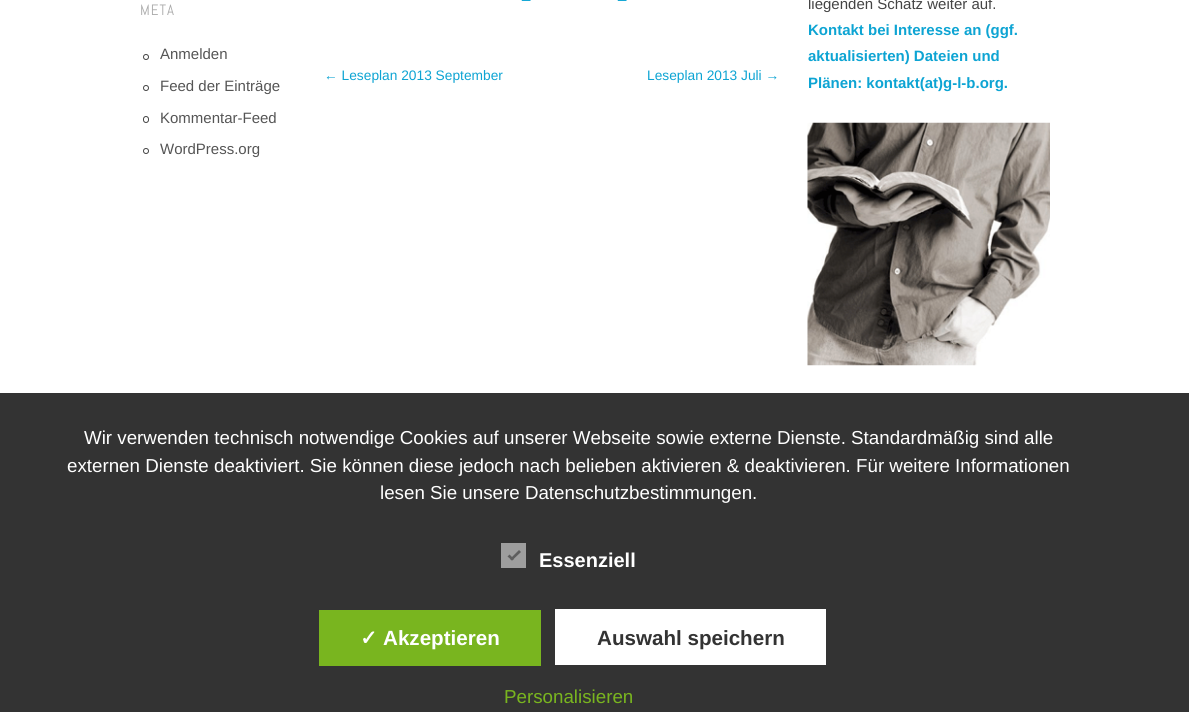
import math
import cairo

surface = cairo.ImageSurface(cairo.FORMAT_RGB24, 1189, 712)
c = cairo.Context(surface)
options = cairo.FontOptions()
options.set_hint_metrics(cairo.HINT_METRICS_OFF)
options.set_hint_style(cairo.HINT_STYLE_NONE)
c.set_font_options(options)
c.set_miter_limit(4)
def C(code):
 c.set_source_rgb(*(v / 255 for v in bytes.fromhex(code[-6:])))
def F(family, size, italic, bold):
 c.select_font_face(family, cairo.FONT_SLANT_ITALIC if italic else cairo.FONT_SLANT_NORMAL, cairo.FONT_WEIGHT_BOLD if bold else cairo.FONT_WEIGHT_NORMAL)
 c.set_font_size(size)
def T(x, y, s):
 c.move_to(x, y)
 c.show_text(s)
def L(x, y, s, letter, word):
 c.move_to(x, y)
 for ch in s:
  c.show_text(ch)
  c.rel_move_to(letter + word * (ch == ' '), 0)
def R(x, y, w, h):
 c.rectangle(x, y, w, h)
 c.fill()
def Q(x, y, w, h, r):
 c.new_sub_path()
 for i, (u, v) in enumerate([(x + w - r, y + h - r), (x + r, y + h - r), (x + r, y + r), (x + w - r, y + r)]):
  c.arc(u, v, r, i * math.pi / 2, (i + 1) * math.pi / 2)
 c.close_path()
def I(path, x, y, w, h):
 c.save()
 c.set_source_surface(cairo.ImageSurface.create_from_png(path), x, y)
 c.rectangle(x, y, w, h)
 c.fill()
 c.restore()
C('ffffff')
c.paint()
F('Abel',15,0,0)
C('aaaaaa')
L(140,15,'META',1,0)
c.new_path()
c.arc(146,57,2.5,0,2 * math.pi)
C('444444')
c.set_line_width(1)
c.stroke()
F('Liberation Sans',15,0,0)
C('555555')
T(160,59,'Anmelden')
c.new_path()
c.arc(146,88,2.5,0,2 * math.pi)
C('444444')
c.stroke()
C('555555')
T(160,91,'Feed der Einträge')
Q(143.5,116.5,5,6,2.5)
C('444444')
c.stroke()
C('555555')
T(160,123,'Kommentar-Feed')
c.new_path()
c.arc(146,151,2.5,0,2 * math.pi)
C('444444')
c.stroke()
C('555555')
T(160,154,'WordPress.org')
C('0da4d3')
T(522,-2,'_')
T(618,-2,'_')
F('Liberation Sans',13.75,0,0)
T(324,80,'← Leseplan 2013 September')
T(647,80,'Leseplan 2013 Juli →')
F('Liberation Sans',15,0,0)
C('444444')
T(808,9,'liegenden Schatz weiter auf.')
F('Liberation Sans',15,0,1)
C('0da4d3')
T(808,35,'Kontakt bei Interesse an (ggf.')
T(808,61,'aktualisierten) Dateien und')
T(808,88,'Plänen: kontakt(at)g-l-b.org.')
I('1.png',807,122,243,244)
C('333333')
R(0,393,1189,319)
F('Liberation Sans',18.75,0,0)
C('ffffff')
T(84,444,'Wir verwenden technisch notwendige Cookies auf unserer Webseite sowie externe Dienste. Standardmäßig sind alle')
T(67,472,'externen Dienste deaktiviert. Sie können diese jedoch nach belieben aktivieren & deaktivieren. Für weitere Informationen')
T(380,499,'lesen Sie unsere Datenschutzbestimmungen.')
C('9e9e9e')
R(501,543,25,25)
C('5e5e5e')
c.new_path()
c.move_to(519,550)
c.line_to(521,552)
c.line_to(512,560.5)
c.line_to(510,559)
c.close_path()
c.fill()
c.new_path()
c.move_to(509.5,554.5)
c.line_to(514,559)
c.line_to(512,560.5)
c.line_to(507.5,556.5)
c.close_path()
c.fill()
F('Liberation Sans',20,0,1)
C('ffffff')
T(539,567,'Essenziell')
C('79b51f')
R(319,610,222,56)
F('DejaVu Sans',20.6,0,1)
C('ffffff')
T(360,645,'✓')
F('Liberation Sans',20.6,0,1)
T(383,645,'Akzeptieren')
R(555,609,271,56)
C('333333')
T(597,645,'Auswahl speichern')
F('Liberation Sans',18.75,0,0)
C('79b51f')
T(504,703,'Personalisieren')
surface.write_to_png('o.png')
